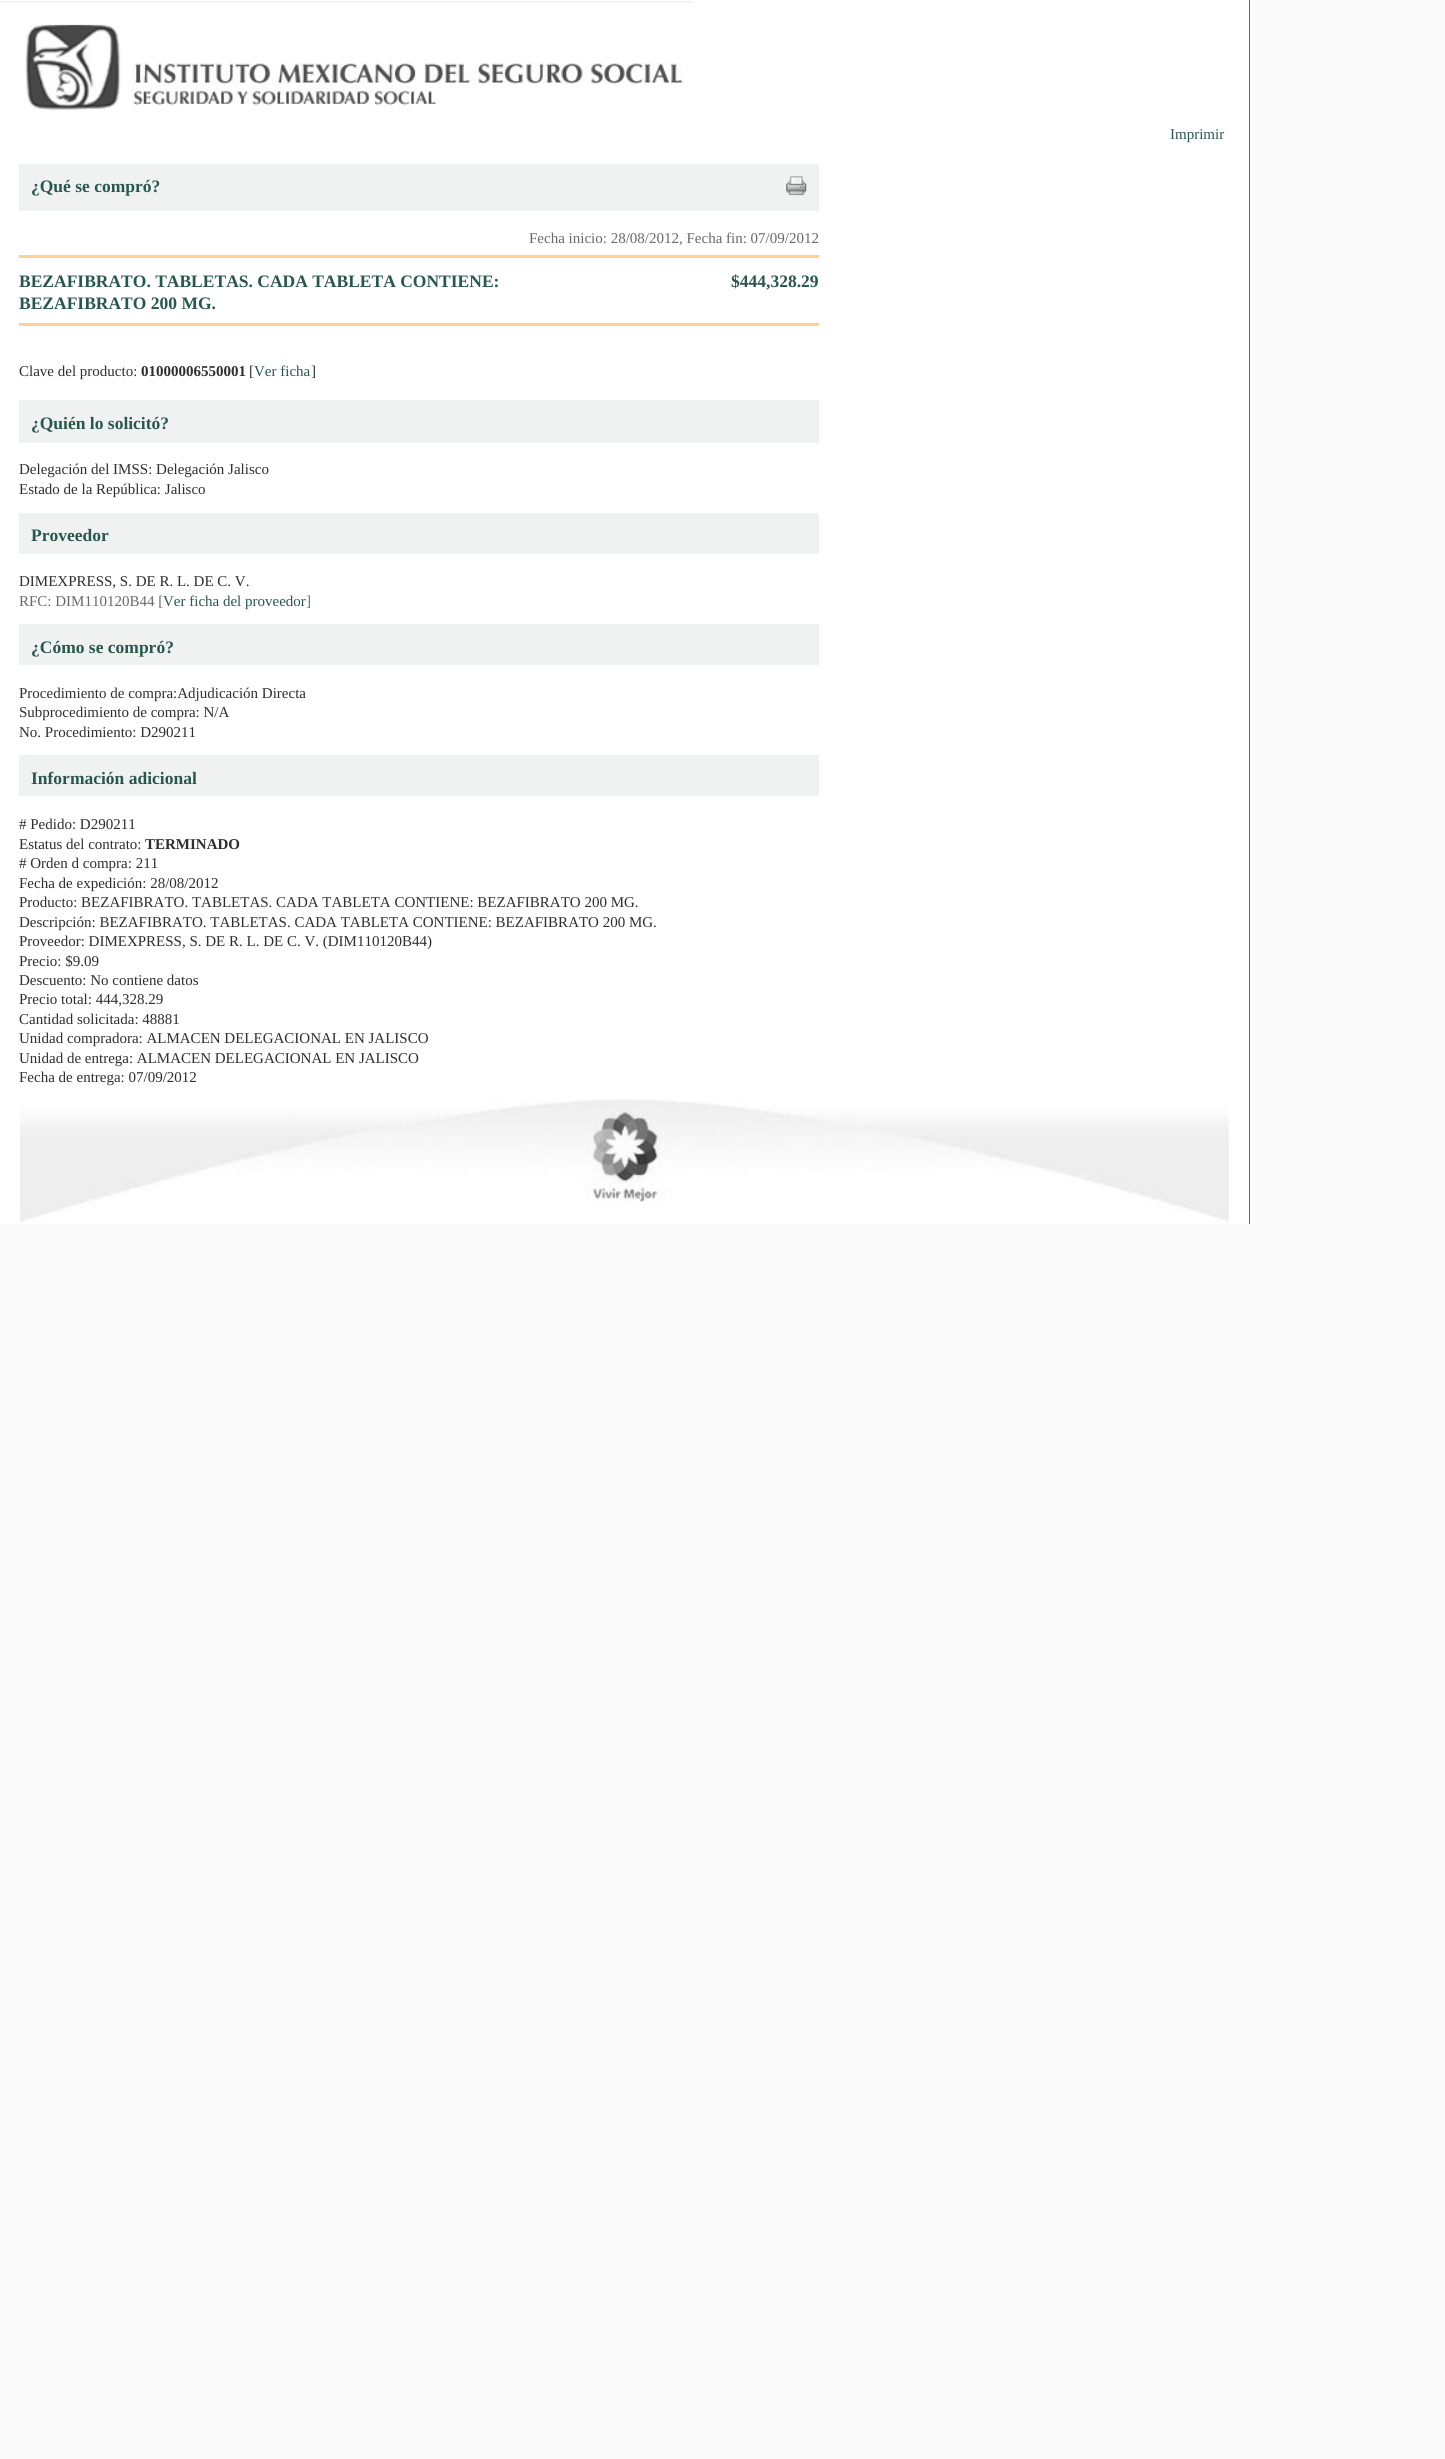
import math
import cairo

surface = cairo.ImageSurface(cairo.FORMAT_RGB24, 1445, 2459)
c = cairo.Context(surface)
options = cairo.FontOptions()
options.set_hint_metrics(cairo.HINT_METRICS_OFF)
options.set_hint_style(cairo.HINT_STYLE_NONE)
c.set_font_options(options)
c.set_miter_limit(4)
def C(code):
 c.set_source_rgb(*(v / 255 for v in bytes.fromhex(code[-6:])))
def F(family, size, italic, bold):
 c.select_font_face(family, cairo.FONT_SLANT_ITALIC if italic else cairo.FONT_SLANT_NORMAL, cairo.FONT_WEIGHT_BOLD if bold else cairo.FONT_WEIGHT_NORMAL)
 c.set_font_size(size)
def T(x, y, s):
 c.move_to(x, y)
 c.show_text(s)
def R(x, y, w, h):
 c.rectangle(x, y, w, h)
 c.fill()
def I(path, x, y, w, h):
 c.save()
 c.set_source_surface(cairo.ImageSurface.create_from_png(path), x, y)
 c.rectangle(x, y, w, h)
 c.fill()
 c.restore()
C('fafafa')
c.paint()
C('ffffff')
R(0,0,1249,1224)
C('666666')
R(1249,0,1,1224)
I('1.png',0,1,694,110)
F('Liberation Serif',15,0,0)
C('28574d')
T(1170,139,'Imprimir')
C('f0f2f1')
R(19,164,800,47)
F('Liberation Serif',17.5,0,1)
C('28574d')
T(31,192,'¿Qué se compró?')
I('2.png',786,176,21,20)
F('Liberation Serif',15,0,0)
C('696969')
T(529,243,'Fecha inicio: 28/08/2012, Fecha fin: 07/09/2012')
C('fed190')
R(19,255,800,3)
F('Liberation Serif',17.5,0,1)
C('28574d')
T(19,287,'BEZAFIBRATO. TABLETAS. CADA TABLETA CONTIENE:')
T(19,309,'BEZAFIBRATO 200 MG.')
T(731,287,'$444,328.29')
C('fed190')
R(19,323,800,3)
F('Liberation Serif',15,0,0)
C('2e2e2e')
T(19,376,'Clave del producto:')
F('Liberation Serif',15,0,1)
T(141,376,'01000006550001')
F('Liberation Serif',15,0,0)
T(249,376,'[')
C('28574d')
T(254,376,'Ver ficha')
C('2e2e2e')
T(311,376,']')
C('f0f2f1')
R(19,400,800,43)
F('Liberation Serif',17.5,0,1)
C('28574d')
T(31,429,'¿Quién lo solicitó?')
F('Liberation Serif',15,0,0)
C('2e2e2e')
T(19,474,'Delegación del IMSS: Delegación Jalisco')
T(19,494,'Estado de la República: Jalisco')
C('f0f2f1')
R(19,513,800,41)
F('Liberation Serif',17.5,0,1)
C('28574d')
T(31,541,'Proveedor')
F('Liberation Serif',15,0,0)
C('2e2e2e')
T(19,586,'DIMEXPRESS, S. DE R. L. DE C. V.')
C('696969')
T(19,606,'RFC: DIM110120B44 [')
C('28574d')
T(163,606,'Ver ficha del proveedor')
C('696969')
T(306,606,']')
C('f0f2f1')
R(19,624,800,41)
F('Liberation Serif',17.5,0,1)
C('28574d')
T(31,653,'¿Cómo se compró?')
F('Liberation Serif',15,0,0)
C('2e2e2e')
T(19,698,'Procedimiento de compra:Adjudicación Directa')
T(19,717,'Subprocedimiento de compra: N/A')
T(19,737,'No. Procedimiento: D290211')
C('f0f2f1')
R(19,755,800,41)
F('Liberation Serif',17.5,0,1)
C('28574d')
T(31,784,'Información adicional')
F('Liberation Serif',15,0,0)
C('2e2e2e')
T(19,829,'# Pedido: D290211')
T(19,849,'Estatus del contrato:')
F('Liberation Serif',15,0,1)
T(145,849,'TERMINADO')
F('Liberation Serif',15,0,0)
T(19,868,'# Orden d compra: 211')
T(19,888,'Fecha de expedición: 28/08/2012')
T(19,907,'Producto: BEZAFIBRATO. TABLETAS. CADA TABLETA CONTIENE: BEZAFIBRATO 200 MG.')
T(19,927,'Descripción: BEZAFIBRATO. TABLETAS. CADA TABLETA CONTIENE: BEZAFIBRATO 200 MG.')
T(19,946,'Proveedor: DIMEXPRESS, S. DE R. L. DE C. V. (DIM110120B44)')
T(19,966,'Precio: $9.09')
T(19,985,'Descuento: No contiene datos')
T(19,1004,'Precio total: 444,328.29')
T(19,1024,'Cantidad solicitada: 48881')
T(19,1043,'Unidad compradora: ALMACEN DELEGACIONAL EN JALISCO')
T(19,1063,'Unidad de entrega: ALMACEN DELEGACIONAL EN JALISCO')
T(19,1082,'Fecha de entrega: 07/09/2012')
I('3.png',20,1099,1209,124)
surface.write_to_png('o.png')
